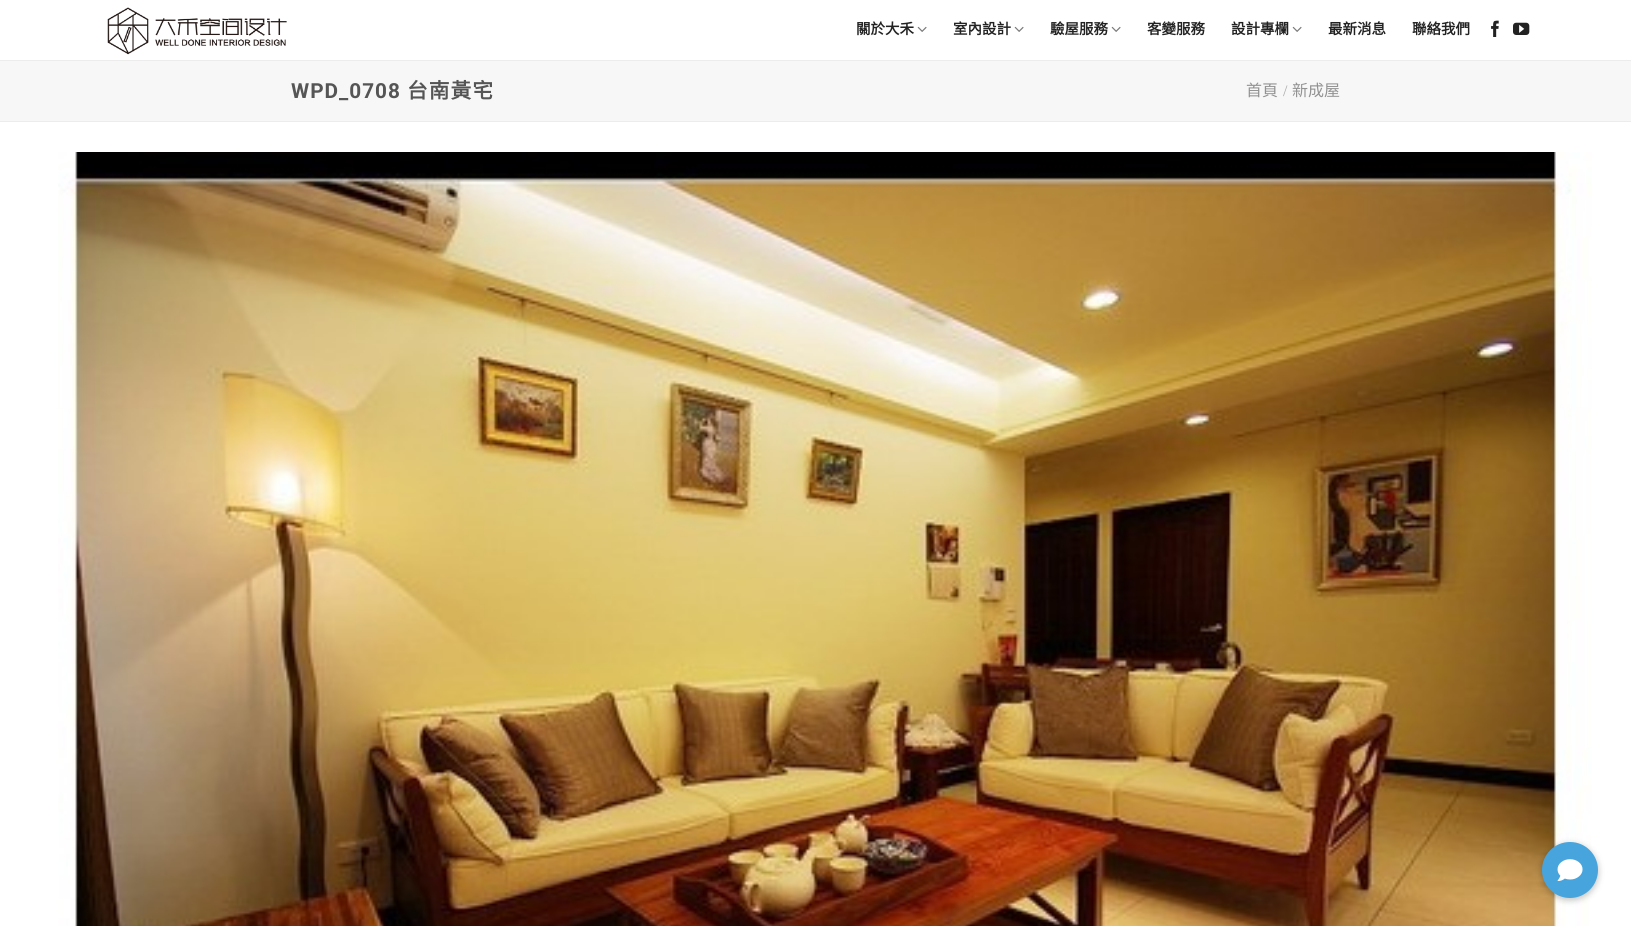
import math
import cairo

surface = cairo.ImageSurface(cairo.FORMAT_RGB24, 1631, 926)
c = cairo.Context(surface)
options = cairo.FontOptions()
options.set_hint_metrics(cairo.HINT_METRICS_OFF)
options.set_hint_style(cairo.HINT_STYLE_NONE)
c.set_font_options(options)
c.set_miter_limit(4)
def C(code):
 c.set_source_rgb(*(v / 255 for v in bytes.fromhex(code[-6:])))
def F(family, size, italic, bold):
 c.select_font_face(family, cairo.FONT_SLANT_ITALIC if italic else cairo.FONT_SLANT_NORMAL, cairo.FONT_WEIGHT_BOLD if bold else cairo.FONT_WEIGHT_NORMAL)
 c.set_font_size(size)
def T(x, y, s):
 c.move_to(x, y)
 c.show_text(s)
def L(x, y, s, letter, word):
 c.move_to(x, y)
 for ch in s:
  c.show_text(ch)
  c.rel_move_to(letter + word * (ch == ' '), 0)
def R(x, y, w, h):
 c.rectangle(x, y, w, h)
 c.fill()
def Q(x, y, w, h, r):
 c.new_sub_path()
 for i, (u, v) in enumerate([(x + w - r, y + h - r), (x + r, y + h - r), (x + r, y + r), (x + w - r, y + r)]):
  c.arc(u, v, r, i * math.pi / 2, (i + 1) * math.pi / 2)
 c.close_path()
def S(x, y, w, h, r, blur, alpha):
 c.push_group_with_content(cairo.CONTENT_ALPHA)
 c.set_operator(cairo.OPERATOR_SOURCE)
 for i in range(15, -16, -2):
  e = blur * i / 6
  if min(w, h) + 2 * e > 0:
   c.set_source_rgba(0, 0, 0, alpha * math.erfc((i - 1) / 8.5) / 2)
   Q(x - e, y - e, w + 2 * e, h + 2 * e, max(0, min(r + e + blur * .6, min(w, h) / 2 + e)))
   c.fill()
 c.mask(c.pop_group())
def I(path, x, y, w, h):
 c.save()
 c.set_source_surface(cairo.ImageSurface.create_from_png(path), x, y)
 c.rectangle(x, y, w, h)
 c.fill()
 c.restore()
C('ffffff')
c.paint()
I('1.png',107,7,180,48)
F('Noto Sans CJK TC',14.5,0,1)
C('222222')
T(856,34,'關於大禾')
I('2.png',917,26,10,6)
T(953,34,'室內設計')
I('2.png',1014,26,10,6)
T(1050,34,'驗屋服務')
I('2.png',1111,26,10,6)
T(1147,34,'客變服務')
T(1231,34,'設計專欄')
I('2.png',1292,26,10,6)
T(1328,34,'最新消息')
T(1412,34,'聯絡我們')
I('3.png',1491,20,8,17)
I('4.png',1513,22,17,13)
C('f7f7f7')
R(0,61,1631,60)
C('ececec')
R(0,60,1631,1)
R(0,121,1631,1)
F('Roboto',20.75,0,1)
C('555555')
L(291,98,'WPD_0708',1,0)
F('Noto Sans CJK TC',20.75,0,1)
L(407,98,'台南黃宅',1,0)
F('Noto Sans CJK TC',16,0,0)
C('929292')
T(1246,96,'首頁')
F('Liberation Serif',16,0,0)
C('acacac')
T(1283,96,'/')
F('Noto Sans CJK TC',16,0,0)
C('929292')
T(1292,96,'新成屋')
I('5.png',58,152,1534,774)
C('000000')
S(1541,843,58,58,29,3,.2)
C('48a4dc')
c.arc(1570,870,28,0,2 * math.pi)
c.fill()
I('6.png',1557,859,26,22)
surface.write_to_png('o.png')
